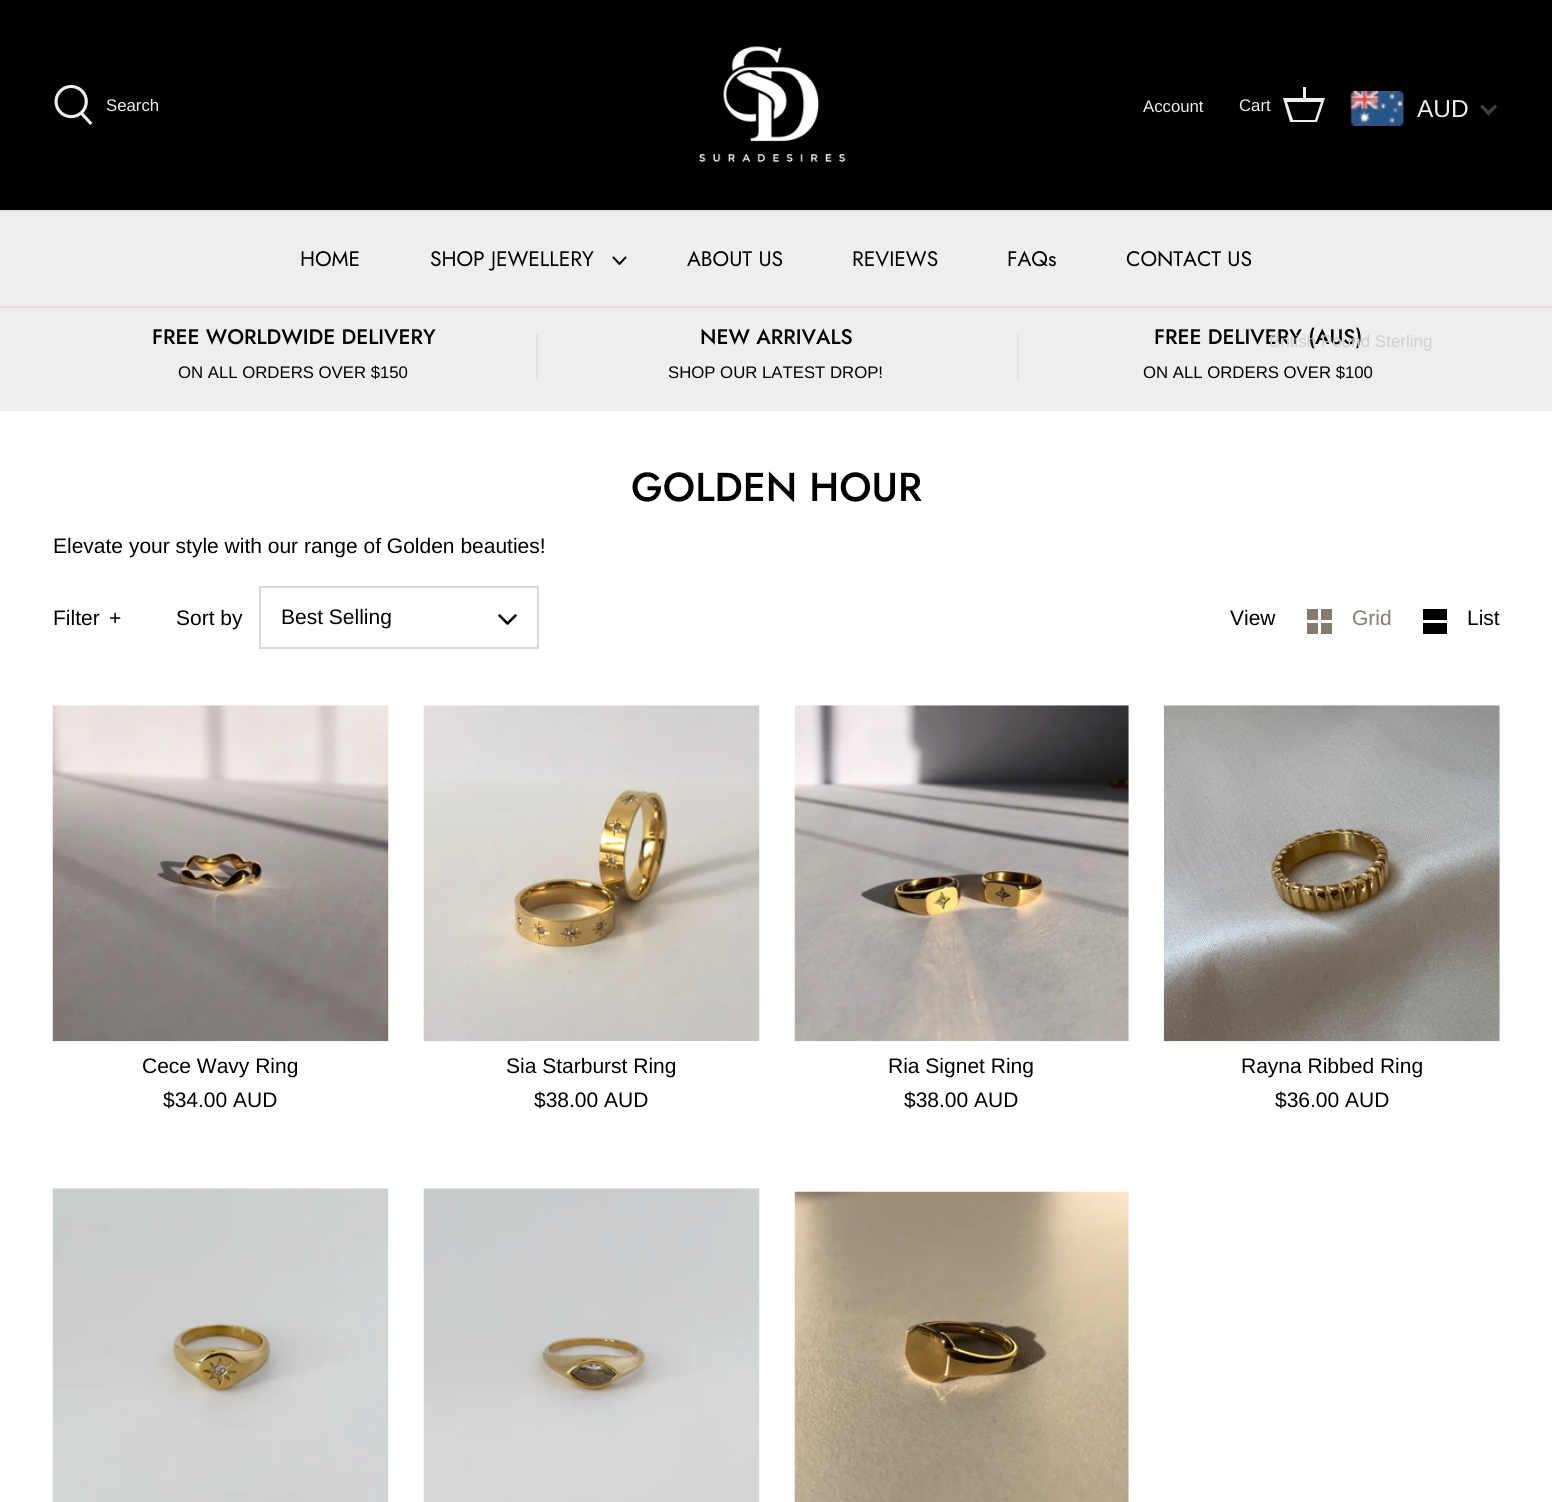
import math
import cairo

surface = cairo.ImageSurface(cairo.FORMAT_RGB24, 1552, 1502)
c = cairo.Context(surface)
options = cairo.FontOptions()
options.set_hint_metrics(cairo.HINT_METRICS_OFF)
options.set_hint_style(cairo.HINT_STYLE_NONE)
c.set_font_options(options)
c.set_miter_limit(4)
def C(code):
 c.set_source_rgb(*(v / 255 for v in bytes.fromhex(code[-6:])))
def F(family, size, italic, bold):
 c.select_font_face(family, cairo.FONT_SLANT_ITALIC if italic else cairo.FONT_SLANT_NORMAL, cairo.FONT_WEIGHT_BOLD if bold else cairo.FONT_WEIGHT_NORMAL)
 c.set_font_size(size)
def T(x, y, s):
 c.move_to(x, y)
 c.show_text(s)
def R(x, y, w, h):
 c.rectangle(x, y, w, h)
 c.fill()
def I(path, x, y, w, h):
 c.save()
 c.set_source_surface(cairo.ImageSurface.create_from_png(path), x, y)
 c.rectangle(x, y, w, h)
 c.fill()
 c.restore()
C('ffffff')
c.paint()
C('000000')
R(0,0,1552,210)
C('e2dfde')
R(0,210,1552,2)
I('1.png',54,84,39,41)
F('Liberation Sans',16.75,0,0)
C('f0eeed')
T(106,111,'Search')
I('2.png',699,46,147,118)
T(1143,112,'Account')
T(1239,111,'Cart')
c.new_path()
c.move_to(1303,98)
c.line_to(1303,87)
c.line_to(1306,87)
c.line_to(1306,98)
c.line_to(1325,98)
c.line_to(1317,122)
c.line_to(1290,122)
c.line_to(1283,98)
c.close_path()
c.move_to(1287,102)
c.line_to(1293,120)
c.line_to(1315,120)
c.line_to(1321,102)
c.close_path()
c.fill()
I('3.png',1350,91,54,35)
F('Liberation Sans',24.5,0,0)
T(1417,117,'AUD')
C('403f3f')
c.new_path()
c.move_to(1495,104.5)
c.line_to(1497,107)
c.line_to(1488.5,115.5)
c.line_to(1486,113)
c.close_path()
c.fill()
c.new_path()
c.move_to(1482.5,104.5)
c.line_to(1491,113)
c.line_to(1488.5,115.5)
c.line_to(1480,107)
c.close_path()
c.fill()
C('f0eeed')
R(0,308,1552,103)
F('Jost Medium',21,0,0)
C('000000')
T(1154,344,'FREE DELIVERY (AUS)')
F('Liberation Sans',17,0,0)
C('d0cfce')
T(1269,347,'British Pound Sterling')
C('e2dfde')
R(0,306,1552,2)
C('f0eeed')
R(0,212,1552,94)
F('Jost',21,0,0)
C('000000')
T(300,266,'HOME')
T(430,266,'SHOP JEWELLERY')
c.new_path()
c.move_to(613.5,257.5)
c.line_to(619.5,264)
c.line_to(625.5,257.5)
c.set_line_cap(cairo.LINE_CAP_ROUND)
c.set_line_join(cairo.LINE_JOIN_ROUND)
c.stroke()
T(687,266,'ABOUT US')
T(852,266,'REVIEWS')
T(1007,266,'FAQs')
T(1126,266,'CONTACT US')
F('Jost Medium',21,0,0)
T(152,344,'FREE WORLDWIDE DELIVERY')
F('Liberation Sans',16.75,0,0)
T(178,378,'ON ALL ORDERS OVER $150')
C('e2e2e2')
R(536,334,2,46)
F('Jost Medium',21,0,0)
C('000000')
T(700,344,'NEW ARRIVALS')
F('Liberation Sans',16.75,0,0)
T(668,378,'SHOP OUR LATEST DROP!')
C('e2e2e2')
R(1017,334,2,46)
C('000000')
T(1143,378,'ON ALL ORDERS OVER $100')
F('Jost Medium',40.25,0,0)
T(631,501,'GOLDEN HOUR')
F('Liberation Sans',21,0,0)
T(53,553,'Elevate your style with our range of Golden beauties!')
T(53,625,'Filter')
T(109,625,'+')
T(176,625,'Sort by')
c.rectangle(260,587,278,61)
C('d9d9d9')
c.set_line_cap(cairo.LINE_CAP_BUTT)
c.set_line_join(cairo.LINE_JOIN_MITER)
c.stroke()
C('000000')
T(281,624,'Best Selling')
c.new_path()
c.move_to(499.5,615.5)
c.line_to(507.5,623.5)
c.line_to(515.5,615.5)
c.set_line_width(2.6)
c.set_line_cap(cairo.LINE_CAP_ROUND)
c.set_line_join(cairo.LINE_JOIN_ROUND)
c.stroke()
T(1230,625,'View')
C('857a6e')
R(1307,609,11,11)
R(1321,609,11,11)
T(1352,625,'Grid')
R(1307,623,11,11)
R(1321,623,11,11)
C('000000')
R(1423,609,24,11)
T(1467,625,'List')
R(1423,623,24,11)
I('4.png',52,705,337,337)
T(142,1073,'Cece Wavy Ring')
T(163,1107,'$34.00 AUD')
I('5.png',423,705,337,337)
T(506,1073,'Sia Starburst Ring')
T(534,1107,'$38.00 AUD')
I('6.png',794,705,335,337)
T(888,1073,'Ria Signet Ring')
T(904,1107,'$38.00 AUD')
I('7.png',1163,705,337,337)
T(1241,1073,'Rayna Ribbed Ring')
T(1275,1107,'$36.00 AUD')
I('8.png',52,1188,337,314)
I('9.png',423,1188,337,314)
I('10.png',794,1191,335,311)
surface.write_to_png('o.png')
